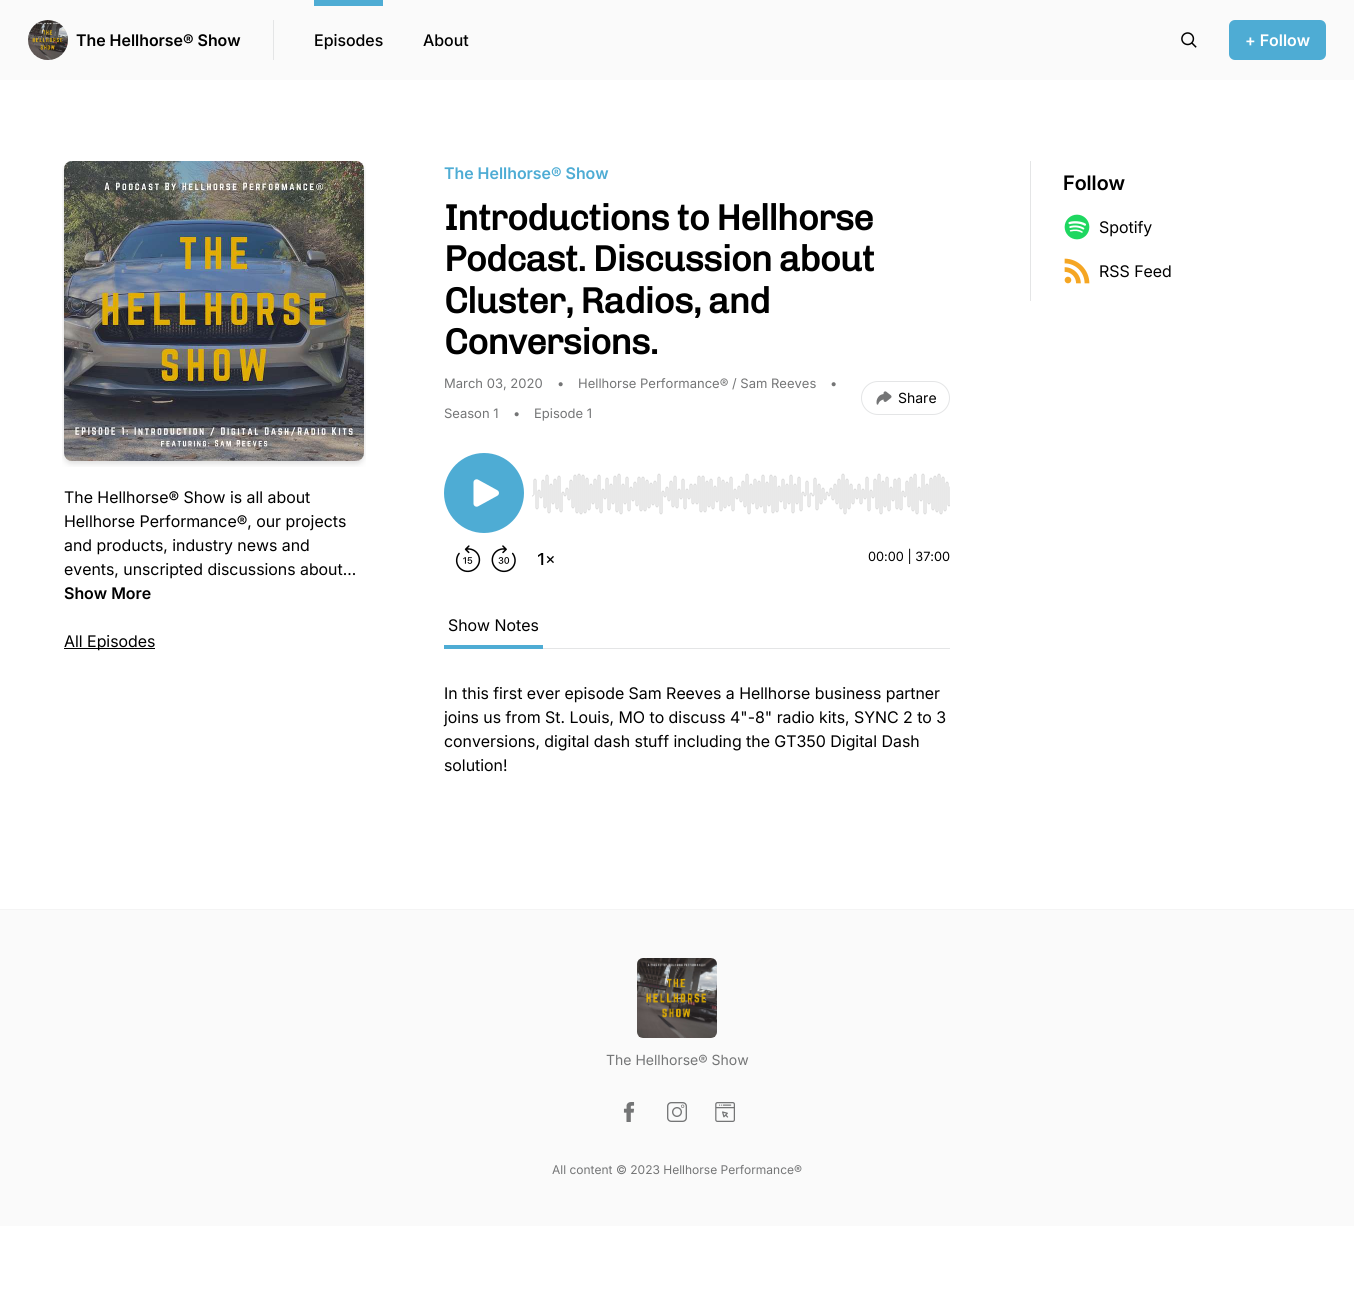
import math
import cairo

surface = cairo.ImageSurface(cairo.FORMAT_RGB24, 1354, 1305)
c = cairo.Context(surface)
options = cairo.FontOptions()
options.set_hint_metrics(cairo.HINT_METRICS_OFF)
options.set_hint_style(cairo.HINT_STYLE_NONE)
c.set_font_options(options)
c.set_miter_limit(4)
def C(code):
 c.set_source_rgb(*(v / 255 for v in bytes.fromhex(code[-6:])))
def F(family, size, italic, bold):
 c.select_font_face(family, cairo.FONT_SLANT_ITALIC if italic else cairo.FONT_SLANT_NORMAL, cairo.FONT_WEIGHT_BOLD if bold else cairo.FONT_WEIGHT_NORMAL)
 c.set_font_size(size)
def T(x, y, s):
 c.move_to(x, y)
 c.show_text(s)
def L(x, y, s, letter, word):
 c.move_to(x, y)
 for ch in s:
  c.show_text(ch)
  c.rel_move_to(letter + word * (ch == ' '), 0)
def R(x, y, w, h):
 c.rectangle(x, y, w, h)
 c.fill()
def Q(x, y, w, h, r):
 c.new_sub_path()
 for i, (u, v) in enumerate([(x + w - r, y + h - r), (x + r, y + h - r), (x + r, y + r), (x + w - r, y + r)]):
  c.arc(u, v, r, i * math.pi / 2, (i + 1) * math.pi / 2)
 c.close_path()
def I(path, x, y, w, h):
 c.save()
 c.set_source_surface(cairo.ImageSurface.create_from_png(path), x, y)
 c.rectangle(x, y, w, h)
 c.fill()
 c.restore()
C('ffffff')
c.paint()
C('fafafa')
R(0,0,1354,80)
C('e4e5e6')
R(273,20,1,40)
I('1.png',28,20,40,40)
F('Inter SemiBold',16,0,0)
C('000000')
T(76,46,'The Hellhorse® Show')
C('4eacd4')
R(314,0,69,6)
F('Inter Medium',16,0,0)
C('000000')
T(314,46,'Episodes')
T(423,46,'About')
I('2.png',1181,32,16,16)
C('4eacd4')
Q(1229,20,97,40,6)
c.fill()
F('Inter SemiBold',16,0,0)
C('ffffff')
T(1245,46,'+ Follow')
C('4eacd4')
T(444,179,'The Hellhorse® Show')
F('Chivo',36,0,1)
C('000000')
L(444,230,'Introductions to Hellhorse',-.9,0)
L(444,271,'Podcast. Discussion about',-.9,0)
L(444,313,'Cluster, Radios, and',-.9,0)
L(444,354,'Conversions.',-.9,0)
F('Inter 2',13,0,0)
C('747576')
T(444,388,'March 03, 2020')
T(557,388,'•')
T(578,388,'Hellhorse Performance® / Sam Reeves')
T(830,388,'•')
T(444,418,'Season 1')
T(513,418,'•')
T(534,418,'Episode 1')
Q(861.5,381.5,88,33,16.5)
C('e4e5e6')
c.set_line_width(1)
c.stroke()
I('3.png',876,391,16,14)
F('Inter 2',14,0,0)
C('000000')
T(898,403,'Share')
I('4.png',455,545,26,28)
I('5.png',491,545,25,28)
I('6.png',538,553,16,12)
C('4eacd4')
c.arc(484,493,40,0,2 * math.pi)
c.fill()
I('7.png',473,479,26,28)
I('8.png',532,473,418,42)
F('Inter 2',12.75,0,0)
C('000000')
T(868,561,'00:00 | 37:00')
C('e4e5e6')
R(543,648,407,1)
C('4eacd4')
R(444,645,99,4)
F('Inter',16,0,0)
C('000000')
T(448,631,'Show Notes')
T(444,699,'In this first ever episode Sam Reeves a Hellhorse business partner')
T(444,723,'joins us from St. Louis, MO to discuss 4"-8" radio kits, SYNC 2 to 3')
T(444,747,'conversions, digital dash stuff including the GT350 Digital Dash')
T(444,771,'solution!')
C('e4e5e6')
R(1030,161,1,140)
F('Inter 2 SemiBold',20,0,0)
C('000000')
T(1063,190,'Follow')
I('9.png',1064,214,26,26)
F('Inter',16,0,0)
T(1099,233,'Spotify')
I('10.png',1064,258,26,26)
T(1099,277,'RSS Feed')
I('11.png',62,161,304,306)
T(64,503,'The Hellhorse® Show is all about')
T(64,527,'Hellhorse Performance®, our projects')
T(64,551,'and products, industry news and')
T(64,575,'events, unscripted discussions about…')
F('Inter SemiBold',16,0,0)
T(64,599,'Show More')
R(64,648,91,1)
F('Inter',16,0,0)
T(64,647,'All Episodes')
C('fafafa')
R(0,910,1354,316)
C('f4f4f4')
R(0,909,1354,1)
I('12.png',637,958,80,80)
F('Inter 2',14,0,0)
C('747576')
T(606,1065,'The Hellhorse® Show')
I('13.png',623,1102,12,20)
I('14.png',667,1102,20,20)
I('15.png',715,1102,20,20)
F('Inter 2',12,0,0)
T(552,1174,'All content © 2023 Hellhorse Performance®')
surface.write_to_png('o.png')
